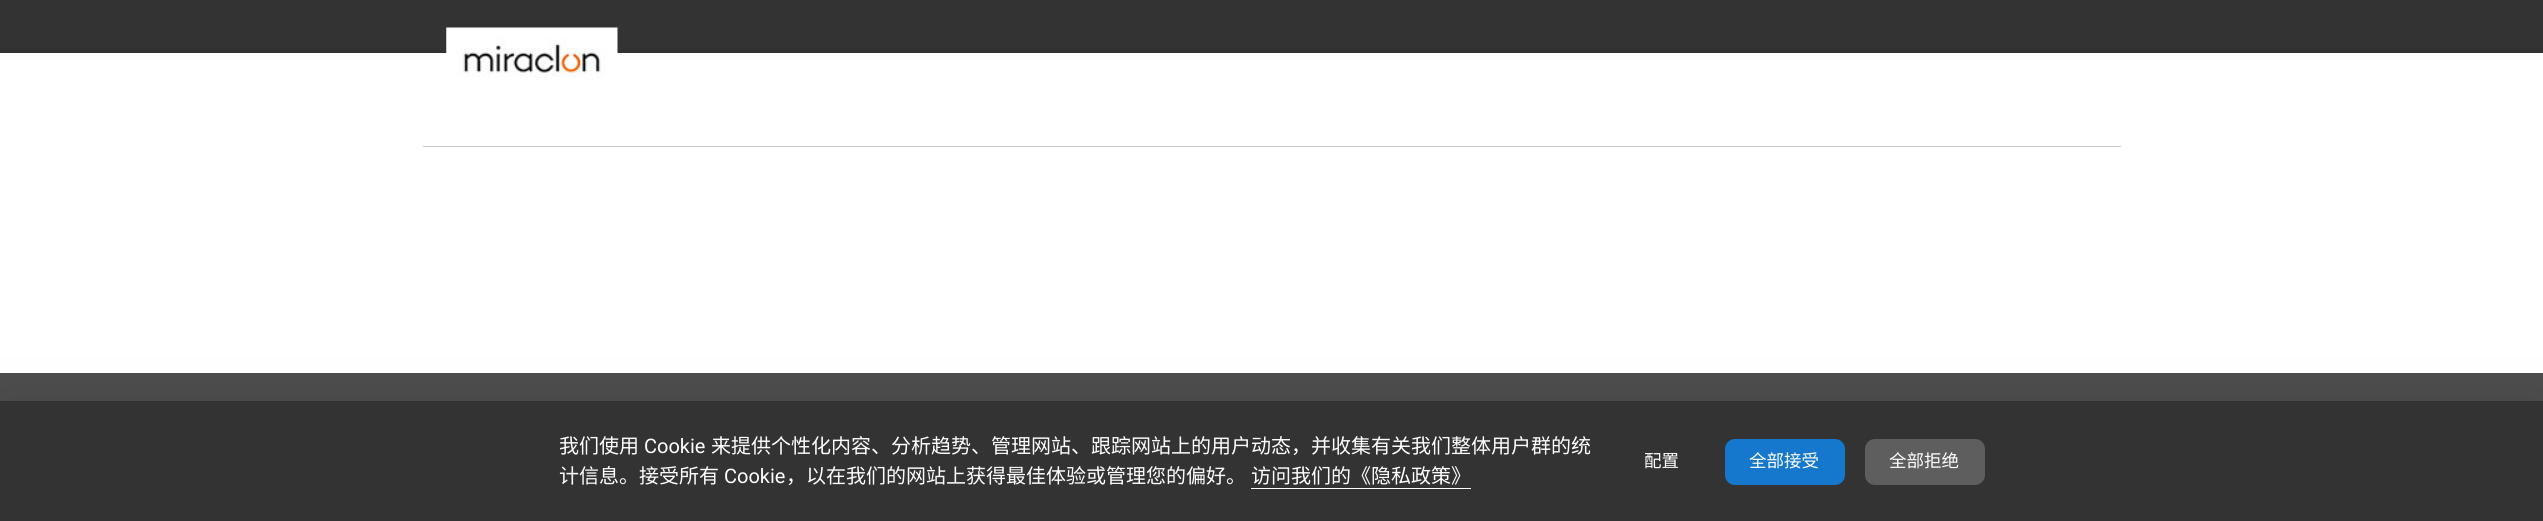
import math
import cairo

surface = cairo.ImageSurface(cairo.FORMAT_RGB24, 2543, 521)
c = cairo.Context(surface)
options = cairo.FontOptions()
options.set_hint_metrics(cairo.HINT_METRICS_OFF)
options.set_hint_style(cairo.HINT_STYLE_NONE)
c.set_font_options(options)
c.set_miter_limit(4)
def C(code):
 c.set_source_rgb(*(v / 255 for v in bytes.fromhex(code[-6:])))
def F(family, size, italic, bold):
 c.select_font_face(family, cairo.FONT_SLANT_ITALIC if italic else cairo.FONT_SLANT_NORMAL, cairo.FONT_WEIGHT_BOLD if bold else cairo.FONT_WEIGHT_NORMAL)
 c.set_font_size(size)
def T(x, y, s):
 c.move_to(x, y)
 c.show_text(s)
def R(x, y, w, h):
 c.rectangle(x, y, w, h)
 c.fill()
def Q(x, y, w, h, r):
 c.new_sub_path()
 for i, (u, v) in enumerate([(x + w - r, y + h - r), (x + r, y + h - r), (x + r, y + r), (x + w - r, y + r)]):
  c.arc(u, v, r, i * math.pi / 2, (i + 1) * math.pi / 2)
 c.close_path()
def S(x, y, w, h, r, blur, alpha):
 c.push_group_with_content(cairo.CONTENT_ALPHA)
 c.set_operator(cairo.OPERATOR_SOURCE)
 for i in range(15, -16, -2):
  e = blur * i / 6
  if min(w, h) + 2 * e > 0:
   c.set_source_rgba(0, 0, 0, alpha * math.erfc((i - 1) / 8.5) / 2)
   Q(x - e, y - e, w + 2 * e, h + 2 * e, max(0, min(r + e + blur * .6, min(w, h) / 2 + e)))
   c.fill()
 c.mask(c.pop_group())
def I(path, x, y, w, h):
 c.save()
 c.set_source_surface(cairo.ImageSurface.create_from_png(path), x, y)
 c.rectangle(x, y, w, h)
 c.fill()
 c.restore()
C('4d4d4d')
c.paint()
C('333333')
R(0,0,2543,53)
C('ffffff')
R(0,53,2543,320)
I('1.png',446,27,172,51)
C('cccccc')
R(423,146,1698,1)
C('000000')
S(0,421,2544,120,0,30,.18)
C('333333')
R(0,401,2543,120)
F('Noto Sans CJK SC',20,0,0)
C('ffffff')
T(559,453,'我们使用')
F('Roboto',20,0,0)
T(644,453,'Cookie')
F('Noto Sans CJK SC',20,0,0)
T(711,453,'来提供个性化内容、分析趋势、管理网站、跟踪网站上的用户动态，并收集有关我们整体用户群的统')
T(559,483,'计信息。接受所有')
F('Roboto',20,0,0)
T(724,483,'Cookie')
F('Noto Sans CJK SC',20,0,0)
T(786,483,'，以在我们的网站上获得最佳体验或管理您的偏好。')
T(1251,483,'访问我们的《隐私政策》')
R(1251,488,220,1)
F('Noto Sans CJK SC',17.5,0,0)
T(1644,467,'配置')
C('1578cd')
Q(1725,439,120,46,10)
c.fill()
C('ffffff')
T(1749,467,'全部接受')
C('5e5e5e')
Q(1865,439,120,46,10)
c.fill()
C('ffffff')
T(1889,467,'全部拒绝')
surface.write_to_png('o.png')
